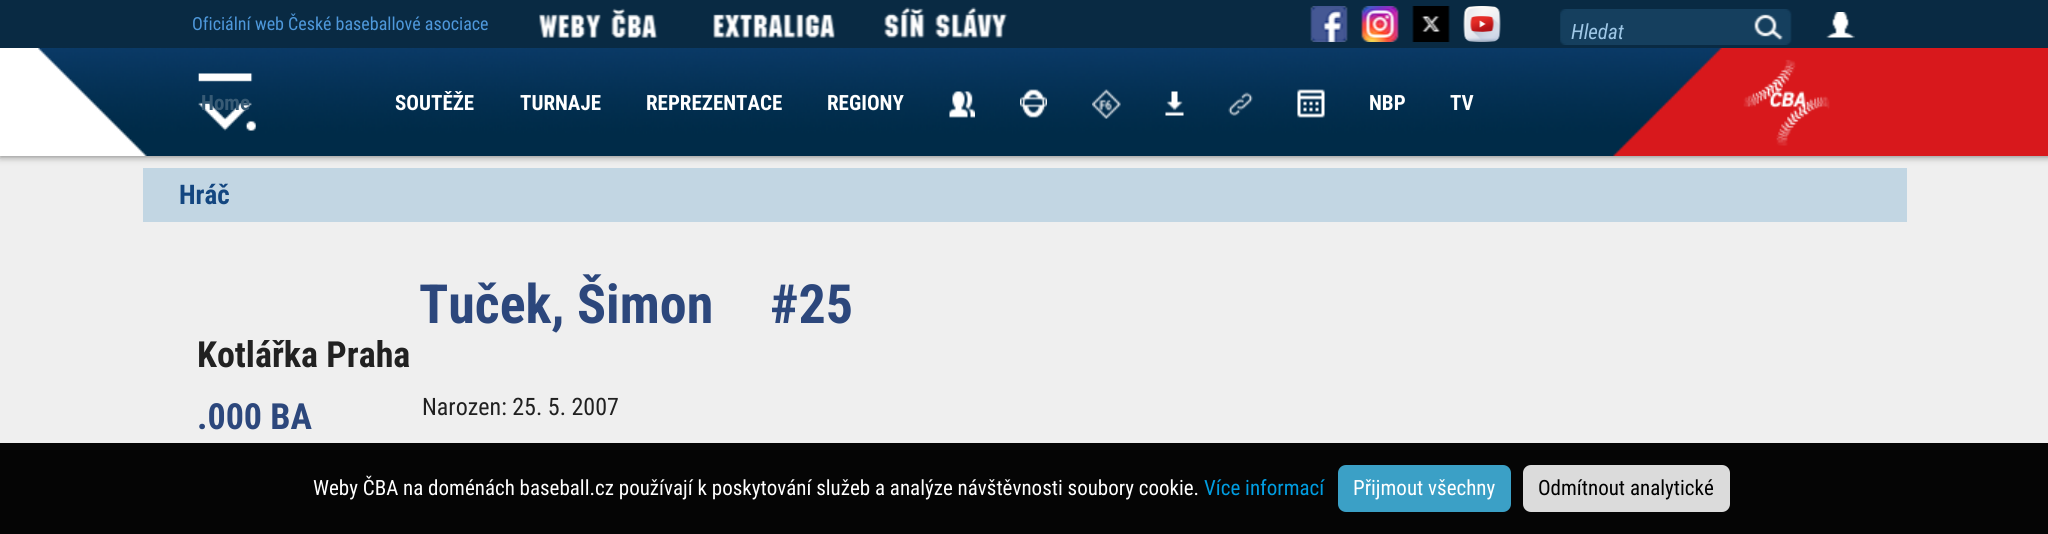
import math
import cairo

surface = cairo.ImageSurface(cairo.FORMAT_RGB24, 2048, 534)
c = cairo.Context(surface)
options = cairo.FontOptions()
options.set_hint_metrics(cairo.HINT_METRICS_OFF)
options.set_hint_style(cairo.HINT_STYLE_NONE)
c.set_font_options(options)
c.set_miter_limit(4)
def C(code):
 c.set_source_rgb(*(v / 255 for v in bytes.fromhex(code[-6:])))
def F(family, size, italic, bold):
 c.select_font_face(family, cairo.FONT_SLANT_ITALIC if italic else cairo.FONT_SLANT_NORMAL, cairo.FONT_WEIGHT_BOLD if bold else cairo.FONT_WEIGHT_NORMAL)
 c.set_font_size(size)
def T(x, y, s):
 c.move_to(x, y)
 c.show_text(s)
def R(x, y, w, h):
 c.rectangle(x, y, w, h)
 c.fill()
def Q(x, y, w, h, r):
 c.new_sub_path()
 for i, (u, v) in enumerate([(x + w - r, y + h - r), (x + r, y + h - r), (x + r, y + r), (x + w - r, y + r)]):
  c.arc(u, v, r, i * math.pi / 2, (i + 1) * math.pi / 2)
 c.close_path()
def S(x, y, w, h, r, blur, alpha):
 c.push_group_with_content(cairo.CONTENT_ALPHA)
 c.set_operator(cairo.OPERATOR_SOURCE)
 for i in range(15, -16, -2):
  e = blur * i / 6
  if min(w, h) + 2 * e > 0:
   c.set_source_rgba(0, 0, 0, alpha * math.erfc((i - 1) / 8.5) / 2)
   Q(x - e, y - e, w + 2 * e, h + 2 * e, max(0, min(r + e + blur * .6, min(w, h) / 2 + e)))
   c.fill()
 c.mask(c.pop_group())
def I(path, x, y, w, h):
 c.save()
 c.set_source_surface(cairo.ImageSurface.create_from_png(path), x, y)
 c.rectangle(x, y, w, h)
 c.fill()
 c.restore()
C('efefef')
c.paint()
C('c2d6e3')
R(143,168,1764,54)
C('1d1d1b')
S(0,48,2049,108,0,4,.63)
C('092a43')
R(0,0,2048,48)
F('Roboto Condensed',18,0,0)
C('4e98db')
T(192,30,'Oficiální web České baseballové asociace')
I('1.png',539,8,119,30)
I('2.png',713,14,122,24)
I('3.png',884,7,124,31)
I('4.png',1310,6,38,36)
I('5.png',1361,6,38,36)
I('6.png',1412,6,38,36)
I('7.png',1463,6,38,36)
I('8.png',1560,9,232,36)
F('Roboto Condensed',21,1,0)
C('9ec7e6')
T(1571,39,'Hledat')
I('9.png',1826,12,29,26)
C('ffffff')
R(0,48,38,108)
I('10.png',38,48,1792,108)
C('d8181c')
R(1830,48,218,108)
F('Roboto Condensed',21,0,1)
C('385b75')
T(201,110,'Home')
C('ffffff')
T(395,110,'SOUTĚŽE')
T(520,110,'TURNAJE')
T(646,110,'REPREZENTACE')
T(827,110,'REGIONY')
I('11.png',949,91,26,27)
I('12.png',1020,89,27,29)
I('13.png',1092,89,29,30)
I('14.png',1165,91,19,25)
I('15.png',1228,92,25,24)
I('16.png',1297,89,28,29)
T(1369,110,'NBP')
T(1450,110,'TV')
F('Roboto Condensed',27,0,1)
C('134680')
T(179,204,'Hráč')
F('Roboto Condensed',54,0,1)
C('2c477c')
T(419,323,'Tuček, Šimon')
T(770,323,'#25')
F('Roboto Condensed',36,0,1)
C('212121')
T(197,367,'Kotlářka Praha')
C('2c477c')
T(197,429,'.000 BA')
F('Roboto Condensed',24,0,0)
C('212121')
T(422,415,'Narozen: 25. 5. 2007')
C('050505')
R(0,443,2048,91)
F('Roboto Condensed',21,0,0)
C('ffffff')
T(313,495,'Weby ČBA na doménách baseball.cz používají k poskytování služeb a analýze návštěvnosti soubory cookie.')
C('009de1')
T(1204,495,'Více informací')
C('3ba0c6')
Q(1338,465,173,47,8)
c.fill()
C('ffffff')
T(1353,495,'Přijmout všechny')
C('dbdbdb')
Q(1523,465,207,47,8)
c.fill()
C('000000')
T(1538,495,'Odmítnout analytické')
surface.write_to_png('o.png')
